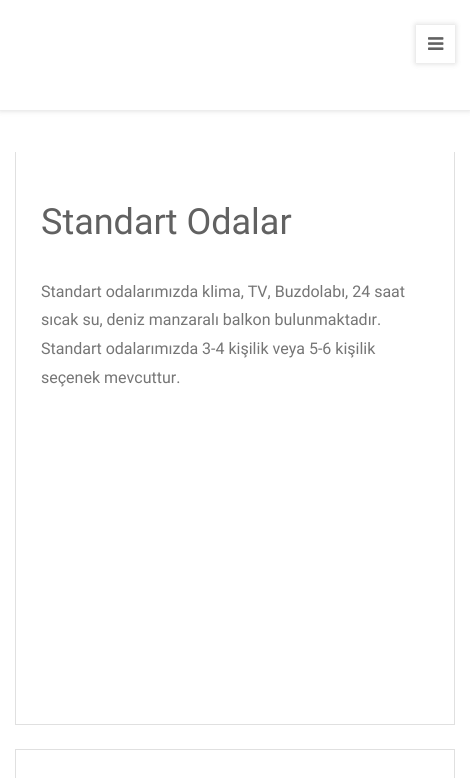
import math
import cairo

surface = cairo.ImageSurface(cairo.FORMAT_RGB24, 470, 778)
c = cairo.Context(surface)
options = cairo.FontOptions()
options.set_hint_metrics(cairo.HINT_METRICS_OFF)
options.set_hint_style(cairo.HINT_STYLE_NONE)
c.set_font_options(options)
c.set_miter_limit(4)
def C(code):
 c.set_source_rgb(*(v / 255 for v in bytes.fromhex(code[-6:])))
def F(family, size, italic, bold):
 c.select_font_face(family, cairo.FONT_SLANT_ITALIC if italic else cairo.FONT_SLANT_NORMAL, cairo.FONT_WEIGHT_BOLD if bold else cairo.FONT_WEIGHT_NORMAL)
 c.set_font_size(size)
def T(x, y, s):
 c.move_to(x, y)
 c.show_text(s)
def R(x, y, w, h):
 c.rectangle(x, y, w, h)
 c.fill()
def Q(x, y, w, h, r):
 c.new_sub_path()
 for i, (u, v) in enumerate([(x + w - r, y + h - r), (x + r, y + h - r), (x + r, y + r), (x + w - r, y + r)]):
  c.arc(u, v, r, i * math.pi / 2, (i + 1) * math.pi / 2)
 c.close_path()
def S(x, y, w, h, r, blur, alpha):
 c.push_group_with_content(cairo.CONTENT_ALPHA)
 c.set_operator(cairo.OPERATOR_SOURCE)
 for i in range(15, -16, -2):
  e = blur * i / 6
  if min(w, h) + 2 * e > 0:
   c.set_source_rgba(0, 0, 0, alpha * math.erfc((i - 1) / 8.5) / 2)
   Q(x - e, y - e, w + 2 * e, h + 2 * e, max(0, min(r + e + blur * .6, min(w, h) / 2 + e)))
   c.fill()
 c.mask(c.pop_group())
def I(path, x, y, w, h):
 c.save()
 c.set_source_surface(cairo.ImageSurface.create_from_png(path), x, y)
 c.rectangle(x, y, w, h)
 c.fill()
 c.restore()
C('ffffff')
c.paint()
C('212121')
S(0,0,470,110,0,3,.2)
C('ffffff')
R(0,0,470,110)
c.save()
c.set_fill_rule(cairo.FILL_RULE_EVEN_ODD)
c.new_path()
c.move_to(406,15)
c.line_to(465,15)
c.line_to(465,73)
c.line_to(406,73)
c.close_path()
c.move_to(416,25)
c.line_to(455,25)
c.line_to(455,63)
c.line_to(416,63)
c.close_path()
c.clip()
C('212121')
S(416,25,39,38,0,3,.2)
c.restore()
I('1.png',428,37,16,13)
C('e0e0e0')
R(454,152,1,573)
R(15,724,440,1)
R(15,152,1,573)
F('Roboto',36,0,0)
C('616161')
T(41,234,'Standart Odalar')
F('Roboto',16,0,0)
C('757575')
T(41,297,'Standart odalarımızda klima, TV, Buzdolabı, 24 saat')
T(41,325,'sıcak su, deniz manzaralı balkon bulunmaktadır.')
T(41,354,'Standart odalarımızda 3-4 kişilik veya 5-6 kişilik')
T(41,383,'seçenek mevcuttur.')
c.rectangle(15.5,749.5,439,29)
C('e0e0e0')
c.set_line_width(1)
c.stroke()
surface.write_to_png('o.png')
